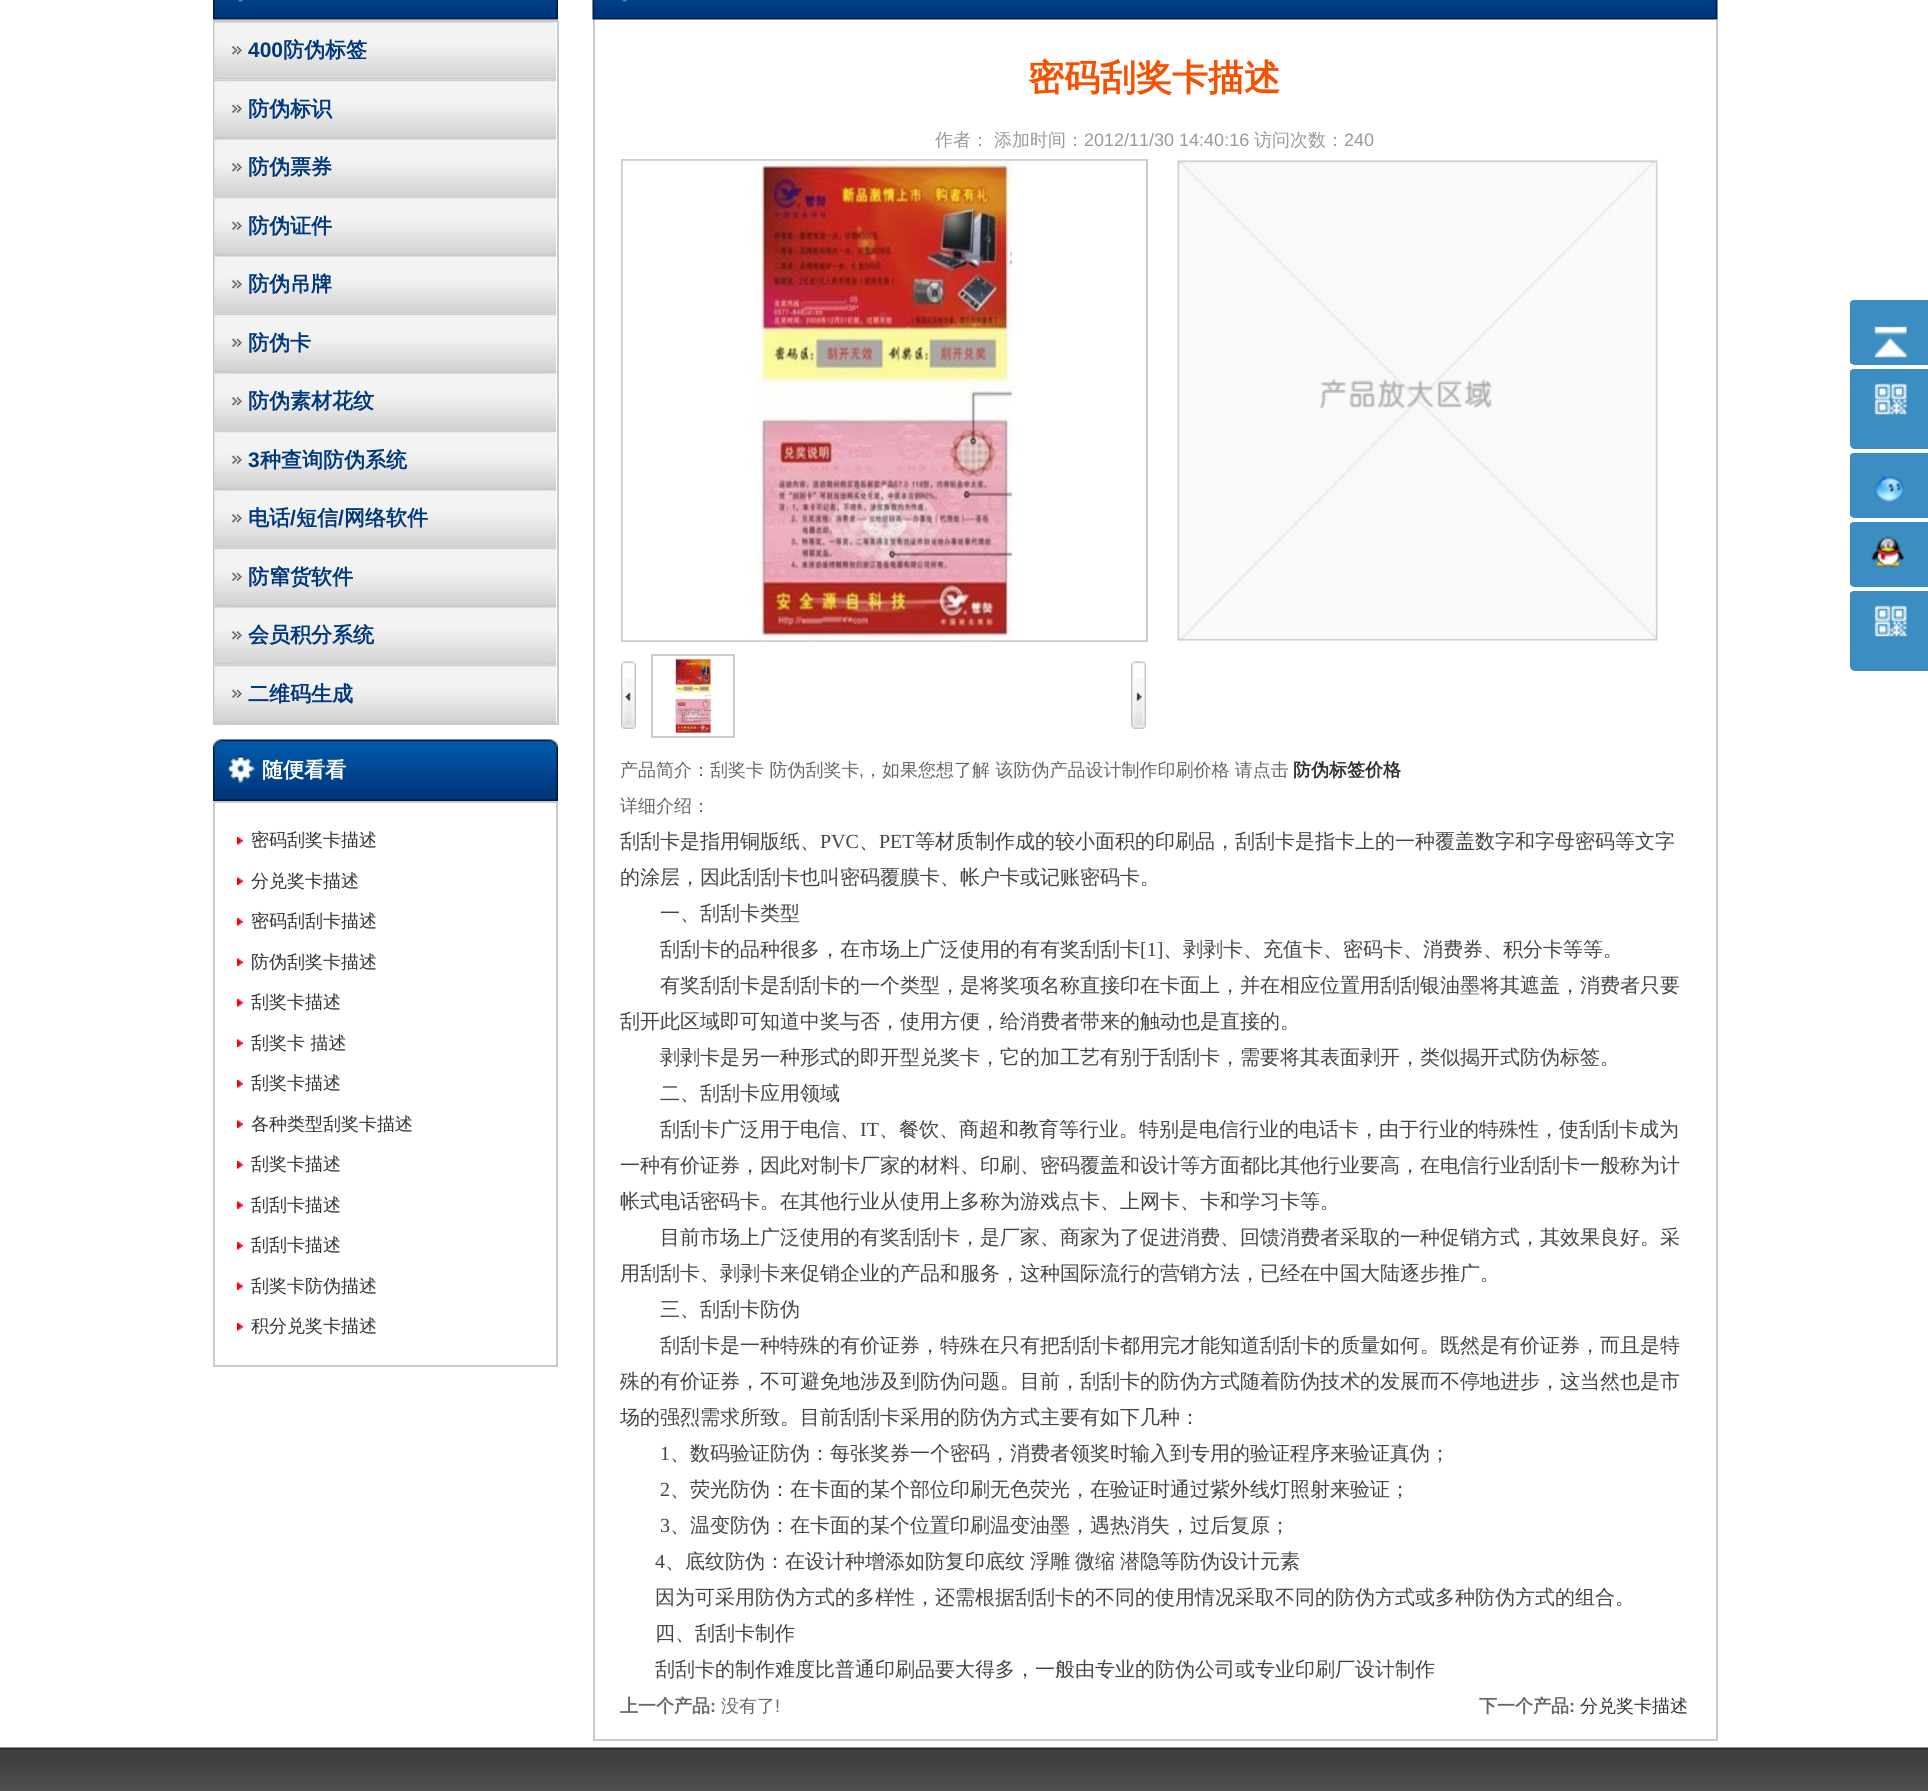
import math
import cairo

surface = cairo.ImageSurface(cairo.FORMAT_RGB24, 1928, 1791)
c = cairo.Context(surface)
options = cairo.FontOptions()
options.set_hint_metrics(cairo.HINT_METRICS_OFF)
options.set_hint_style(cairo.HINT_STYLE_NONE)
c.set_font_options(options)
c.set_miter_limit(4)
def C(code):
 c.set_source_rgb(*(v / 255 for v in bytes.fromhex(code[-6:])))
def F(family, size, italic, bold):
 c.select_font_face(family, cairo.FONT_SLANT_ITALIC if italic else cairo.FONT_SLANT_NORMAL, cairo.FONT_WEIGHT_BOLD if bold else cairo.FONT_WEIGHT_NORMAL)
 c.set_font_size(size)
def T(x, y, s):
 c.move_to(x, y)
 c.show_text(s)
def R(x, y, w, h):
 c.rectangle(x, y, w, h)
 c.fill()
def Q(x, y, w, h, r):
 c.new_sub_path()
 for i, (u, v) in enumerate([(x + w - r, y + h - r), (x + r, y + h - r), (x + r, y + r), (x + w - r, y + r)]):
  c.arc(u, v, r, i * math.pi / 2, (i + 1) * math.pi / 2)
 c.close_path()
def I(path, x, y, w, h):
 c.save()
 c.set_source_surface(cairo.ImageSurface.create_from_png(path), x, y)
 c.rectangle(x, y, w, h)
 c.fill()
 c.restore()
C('ffffff')
c.paint()
I('1.png',213,0,345,20)
C('c9cacf')
R(213,20,345,2)
R(557,20,2,705)
R(213,723,345,2)
I('2.png',213,21,344,59)
F('Liberation Sans',21,0,1)
C('00387d')
T(248,57,'400')
F('WenQuanYi Zen Hei',21,0,1)
T(283,57,'防伪标签')
I('3.png',213,79,344,59)
T(248,116,'防伪标识')
I('4.png',213,138,344,59)
T(248,174,'防伪票券')
I('3.png',213,196,344,59)
T(248,233,'防伪证件')
I('4.png',213,255,344,59)
T(248,291,'防伪吊牌')
I('3.png',213,313,344,59)
T(248,350,'防伪卡')
I('4.png',213,372,344,59)
T(248,408,'防伪素材花纹')
I('3.png',213,430,344,59)
F('Liberation Sans',21,0,1)
T(248,467,'3')
F('WenQuanYi Zen Hei',21,0,1)
T(260,467,'种查询防伪系统')
I('4.png',213,489,344,59)
T(248,525,'电话')
F('Liberation Sans',21,0,1)
T(290,525,'/')
F('WenQuanYi Zen Hei',21,0,1)
T(296,525,'短信')
F('Liberation Sans',21,0,1)
T(338,525,'/')
F('WenQuanYi Zen Hei',21,0,1)
T(344,525,'网络软件')
I('3.png',213,547,344,59)
T(248,584,'防窜货软件')
I('4.png',213,606,344,59)
T(248,642,'会员积分系统')
I('3.png',213,664,344,59)
T(248,701,'二维码生成')
I('5.png',213,739,345,62)
C('ffffff')
T(262,777,'随便看看')
c.rectangle(214,802,343,564)
C('c9cacf')
c.stroke()
I('6.png',237,837,6,8)
F('WenQuanYi Zen Hei Medium',18,0,0)
C('333333')
T(251,846,'密码刮奖卡描述')
I('7.png',237,877,6,8)
T(251,887,'分兑奖卡描述')
I('6.png',237,918,6,8)
T(251,927,'密码刮刮卡描述')
I('7.png',237,958,6,8)
T(251,968,'防伪刮奖卡描述')
I('6.png',237,999,6,8)
T(251,1008,'刮奖卡描述')
I('7.png',237,1039,6,8)
T(251,1049,'刮奖卡 描述')
I('6.png',237,1080,6,8)
T(251,1089,'刮奖卡描述')
I('7.png',237,1120,6,8)
T(251,1130,'各种类型刮奖卡描述')
I('6.png',237,1161,6,8)
T(251,1170,'刮奖卡描述')
I('7.png',237,1201,6,8)
T(251,1211,'刮刮卡描述')
I('6.png',237,1242,6,8)
T(251,1251,'刮刮卡描述')
I('7.png',237,1282,6,8)
T(251,1292,'刮奖卡防伪描述')
I('6.png',237,1323,6,8)
T(251,1332,'积分兑奖卡描述')
I('8.png',592,0,1126,20)
C('c9cacf')
R(1716,20,2,1720)
R(593,1739,1125,2)
R(593,20,2,1720)
F('WenQuanYi Zen Hei',36,0,1)
C('f75000')
T(1028,90,'密码刮奖卡描述')
F('WenQuanYi Zen Hei Medium',18,0,0)
C('999999')
T(935,146,'作者：')
T(994,146,'添加时间：')
F('Liberation Sans',18,0,0)
T(1084,146,'2012/11/30 14:40:16')
F('WenQuanYi Zen Hei Medium',18,0,0)
T(1254,146,'访问次数：')
F('Liberation Sans',18,0,0)
T(1344,146,'240')
c.rectangle(622,160,525,481)
C('cccccc')
c.stroke()
I('9.png',622,160,524,481)
I('10.png',621,661,15,68)
I('11.png',621,661,15,68)
c.rectangle(652,655,82,82)
c.stroke()
I('12.png',675,658,37,76)
I('13.png',1131,661,15,68)
I('14.png',1131,661,15,68)
I('15.png',1177,159,481,485)
F('WenQuanYi Zen Hei Medium',18,0,0)
C('666666')
T(620,776,'产品简介：刮奖卡 防伪刮奖卡')
F('Liberation Sans',18,0,0)
T(859,776,',')
F('WenQuanYi Zen Hei Medium',18,0,0)
T(864,776,'，如果您想了解 该防伪产品设计制作印刷价格 请点击')
F('WenQuanYi Zen Hei',18,0,1)
C('333333')
T(1293,776,'防伪标签价格')
F('WenQuanYi Zen Hei Medium',18,0,0)
C('666666')
T(620,812,'详细介绍：')
F('WenQuanYi Zen Hei Medium',20,0,0)
C('444444')
T(620,848,'刮刮卡是指用铜版纸、')
F('Liberation Serif',20,0,0)
T(820,848,'PVC')
T(879,848,'PET')
F('WenQuanYi Zen Hei Medium',20,0,0)
T(915,848,'等材质制作成的较小面积的印刷品，刮刮卡是指卡上的一种覆盖数字和字母密码等文字')
T(859,848,'、')
T(620,884,'的涂层，因此刮刮卡也叫密码覆膜卡、帐户卡或记账密码卡。')
T(660,920,'一、刮刮卡类型')
T(660,956,'刮刮卡的品种很多，在市场上广泛使用的有有奖刮刮卡')
F('Liberation Serif',20,0,0)
T(1140,956,'[1]')
F('WenQuanYi Zen Hei Medium',20,0,0)
T(1163,956,'、剥剥卡、充值卡、密码卡、消费券、积分卡等等。')
T(660,992,'有奖刮刮卡是刮刮卡的一个类型，是将奖项名称直接印在卡面上，并在相应位置用刮刮银油墨将其遮盖，消费者只要')
T(620,1028,'刮开此区域即可知道中奖与否，使用方便，给消费者带来的触动也是直接的。')
T(660,1064,'剥剥卡是另一种形式的即开型兑奖卡，它的加工艺有别于刮刮卡，需要将其表面剥开，类似揭开式防伪标签。')
T(660,1100,'二、刮刮卡应用领域')
T(660,1136,'刮刮卡广泛用于电信、')
F('Liberation Serif',20,0,0)
T(860,1136,'IT')
F('WenQuanYi Zen Hei Medium',20,0,0)
T(879,1136,'、餐饮、商超和教育等行业。特别是电信行业的电话卡，由于行业的特殊性，使刮刮卡成为')
T(620,1172,'一种有价证券，因此对制卡厂家的材料、印刷、密码覆盖和设计等方面都比其他行业要高，在电信行业刮刮卡一般称为计')
T(620,1208,'帐式电话密码卡。在其他行业从使用上多称为游戏点卡、上网卡、卡和学习卡等。')
T(660,1244,'目前市场上广泛使用的有奖刮刮卡，是厂家、商家为了促进消费、回馈消费者采取的一种促销方式，其效果良好。采')
T(620,1280,'用刮刮卡、剥剥卡来促销企业的产品和服务，这种国际流行的营销方法，已经在中国大陆逐步推广。')
T(660,1316,'三、刮刮卡防伪')
T(660,1352,'刮刮卡是一种特殊的有价证券，特殊在只有把刮刮卡都用完才能知道刮刮卡的质量如何。既然是有价证券，而且是特')
T(620,1388,'殊的有价证券，不可避免地涉及到防伪问题。目前，刮刮卡的防伪方式随着防伪技术的发展而不停地进步，这当然也是市')
T(620,1424,'场的强烈需求所致。目前刮刮卡采用的防伪方式主要有如下几种：')
F('Liberation Serif',20,0,0)
T(660,1460,'1')
F('WenQuanYi Zen Hei Medium',20,0,0)
T(670,1460,'、数码验证防伪：每张奖券一个密码，消费者领奖时输入到专用的验证程序来验证真伪；')
F('Liberation Serif',20,0,0)
T(660,1496,'2')
F('WenQuanYi Zen Hei Medium',20,0,0)
T(670,1496,'、荧光防伪：在卡面的某个部位印刷无色荧光，在验证时通过紫外线灯照射来验证；')
F('Liberation Serif',20,0,0)
T(660,1532,'3')
F('WenQuanYi Zen Hei Medium',20,0,0)
T(670,1532,'、温变防伪：在卡面的某个位置印刷温变油墨，遇热消失，过后复原；')
F('Liberation Serif',20,0,0)
T(655,1568,'4')
F('WenQuanYi Zen Hei Medium',20,0,0)
T(665,1568,'、底纹防伪：在设计种增添如防复印底纹')
T(1030,1568,'浮雕')
T(1075,1568,'微缩')
T(1120,1568,'潜隐等防伪设计元素')
T(655,1604,'因为可采用防伪方式的多样性，还需根据刮刮卡的不同的使用情况采取不同的防伪方式或多种防伪方式的组合。')
T(655,1640,'四、刮刮卡制作')
T(655,1676,'刮刮卡的制作难度比普通印刷品要大得多，一般由专业的防伪公司或专业印刷厂设计制作')
F('WenQuanYi Zen Hei',18,0,1)
C('666666')
T(620,1712,'上一个产品')
F('Liberation Sans',18,0,1)
T(710,1712,':')
F('WenQuanYi Zen Hei Medium',18,0,0)
T(721,1712,'没有了')
F('Liberation Sans',18,0,0)
T(775,1712,'!')
F('WenQuanYi Zen Hei',18,0,1)
T(1479,1712,'下一个产品')
F('Liberation Sans',18,0,1)
T(1569,1712,':')
F('WenQuanYi Zen Hei Medium',18,0,0)
C('333333')
T(1580,1712,'分兑奖卡描述')
C('3c8dc1')
Q(1850,300,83,65,5)
c.fill()
I('16.png',1850,300,57,65)
Q(1850,369,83,80,5)
c.fill()
I('17.png',1850,369,57,46)
Q(1850,453,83,65,5)
c.fill()
I('18.png',1850,453,54,65)
Q(1850,522,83,65,5)
c.fill()
I('19.png',1850,522,54,65)
Q(1850,591,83,80,5)
c.fill()
I('17.png',1850,591,57,46)
I('20.png',0,1747,1928,44)
surface.write_to_png('o.png')
